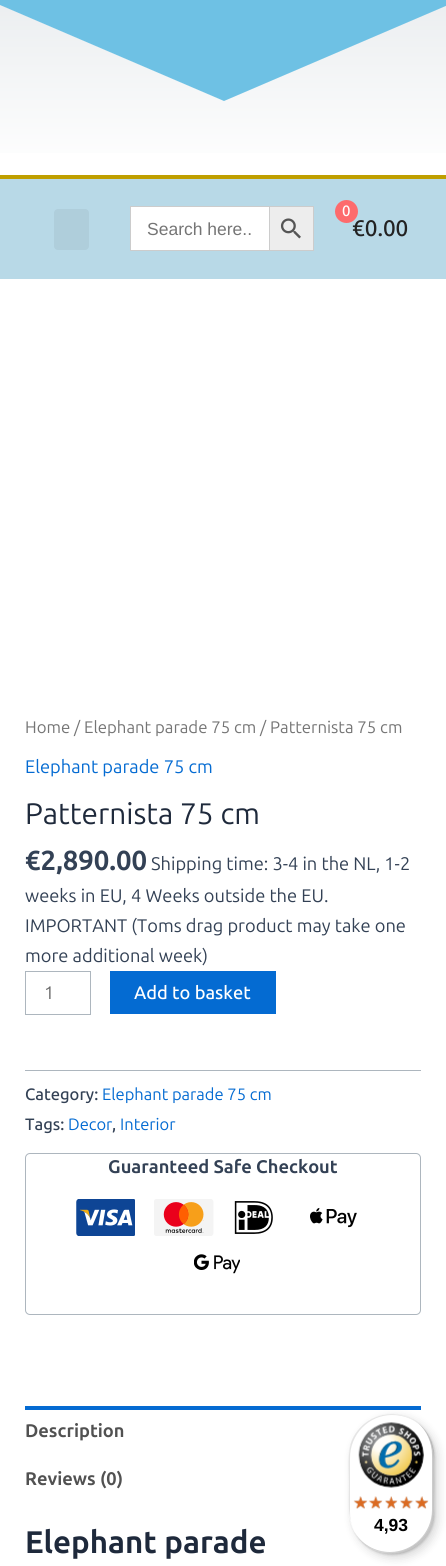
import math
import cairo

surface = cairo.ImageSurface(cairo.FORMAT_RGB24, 446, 1566)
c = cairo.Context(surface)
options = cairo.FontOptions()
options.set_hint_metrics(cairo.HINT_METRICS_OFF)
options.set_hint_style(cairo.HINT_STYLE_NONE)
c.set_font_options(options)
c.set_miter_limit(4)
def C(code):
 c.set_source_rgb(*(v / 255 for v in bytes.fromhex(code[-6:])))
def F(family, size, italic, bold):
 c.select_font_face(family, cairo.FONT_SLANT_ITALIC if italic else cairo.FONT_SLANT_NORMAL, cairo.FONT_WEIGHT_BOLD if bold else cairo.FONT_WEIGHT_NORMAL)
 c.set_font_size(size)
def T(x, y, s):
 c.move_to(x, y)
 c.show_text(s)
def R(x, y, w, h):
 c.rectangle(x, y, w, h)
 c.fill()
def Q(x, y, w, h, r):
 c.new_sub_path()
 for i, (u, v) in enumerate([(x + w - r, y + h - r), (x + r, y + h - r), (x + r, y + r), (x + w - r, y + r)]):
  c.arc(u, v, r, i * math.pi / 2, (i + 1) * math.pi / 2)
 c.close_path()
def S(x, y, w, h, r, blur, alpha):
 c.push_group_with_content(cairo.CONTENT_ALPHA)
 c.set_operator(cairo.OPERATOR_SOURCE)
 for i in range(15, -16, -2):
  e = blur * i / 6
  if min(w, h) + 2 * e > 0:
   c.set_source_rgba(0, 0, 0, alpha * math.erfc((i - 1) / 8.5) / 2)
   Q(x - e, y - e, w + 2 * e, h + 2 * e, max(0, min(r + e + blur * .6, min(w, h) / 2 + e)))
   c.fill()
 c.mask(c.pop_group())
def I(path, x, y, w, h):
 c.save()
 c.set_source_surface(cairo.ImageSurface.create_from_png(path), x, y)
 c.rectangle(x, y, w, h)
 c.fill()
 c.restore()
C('ffffff')
c.paint()
gradient = cairo.LinearGradient(223,0,223,175)
gradient.add_color_stop_rgba(0,0.922,0.933,0.941,1)
gradient.add_color_stop_rgba(1,1,1,1,1)
c.set_source(gradient)
R(0,5,446,148)
C('6ec1e4')
c.new_path()
c.move_to(224,101)
c.line_to(0,5)
c.line_to(0,-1)
c.line_to(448,-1)
c.line_to(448,5)
c.close_path()
c.fill()
C('b8d9e7')
R(0,179,446,100)
C('bf9f00')
R(0,175,446,4)
C('afcedb')
Q(54,209,35,41,4)
c.fill()
C('ffffff')
R(131,207,138,43)
C('cccccc')
R(130,206,139,1)
R(130,250,139,1)
R(130,206,1,45)
F('Liberation Sans',17.5,0,0)
C('757575')
T(147,235,'Search here..')
C('ededed')
c.rectangle(269.5,206.5,44,44)
c.fill_preserve()
C('cccccc')
c.set_line_width(1)
c.stroke()
I('1.png',280,218,21,21)
F('Ubuntu Medium',22.5,0,0)
C('222222')
T(352,236,'€0.00')
C('fd6b6d')
c.new_path()
c.arc(346.5,211.5,11.5,0,2 * math.pi)
c.fill()
F('Ubuntu Medium',15,0,0)
C('ffffff')
T(342,216,'0')
F('Ubuntu',16.75,0,0)
C('757575')
T(25,733,'Home / Elephant parade 75 cm / Patternista 75 cm')
F('Ubuntu',18.25,0,0)
C('046bd2')
T(25,773,'Elephant parade 75 cm')
F('Ubuntu',29.75,0,0)
C('1e293b')
T(25,824,'Patternista 75 cm')
F('Ubuntu',27.5,0,1)
C('334155')
T(25,870,'€2,890.00')
F('Ubuntu',18.25,0,0)
T(151,870,'Shipping time: 3-4 in the NL, 1-2')
T(25,902,'weeks in EU, 4 Weeks outside the EU.')
T(25,932,'IMPORTANT (Toms drag product may take one')
T(25,962,'more additional week)')
c.rectangle(25.5,971.5,65,43)
C('adb6be')
c.stroke()
C('666666')
T(44,999,'1')
C('046bd2')
R(110,971,166,43)
F('Ubuntu Medium',18.25,0,0)
C('ffffff')
T(134,999,'Add to basket')
C('adb6be')
R(25,1070,396,1)
F('Ubuntu Medium',16.5,0,0)
C('334155')
T(25,1100,'Category:')
F('Ubuntu',16.5,0,0)
C('046bd2')
T(102,1100,'Elephant parade 75 cm')
F('Ubuntu Medium',16.5,0,0)
C('334155')
T(25,1130,'Tags:')
F('Ubuntu',16.5,0,0)
C('046bd2')
T(68,1130,'Decor')
F('Ubuntu Medium',16.5,0,0)
C('334155')
T(112,1130,',')
F('Ubuntu',16.5,0,0)
C('046bd2')
T(120,1130,'Interior')
Q(25.5,1153.5,395,161,4.5)
C('adb6be')
c.stroke()
F('Ubuntu',18.25,0,1)
C('334155')
T(108,1173,'Guaranteed Safe Checkout')
I('2.png',76,1199,59,37)
I('3.png',154,1199,60,37)
I('4.png',234,1201,39,33)
I('5.png',310,1207,47,21)
I('6.png',194,1254,46,20)
C('046bd2')
R(25,1406,396,4)
C('515151')
T(25,1437,'Description')
T(25,1485,'Reviews (0)')
F('Ubuntu',31.25,0,1)
C('1e293b')
T(25,1553,'Elephant parade')
C('000000')
S(353,1418,85,140,42.5,5,.15)
S(350,1415,85,140,42.5,1,.15)
C('ffffff')
Q(349,1414,85,140,42.5)
c.fill()
C('e5e5e5')
c.new_path()
c.move_to(392,1415)
c.curve_to(405,1415,416,1420,424,1429)
c.curve_to(403,1405,365,1411,352,1440)
c.curve_to(347,1452,349,1470,349,1484)
c.curve_to(349,1505,346,1526,362,1542)
c.curve_to(354,1534,350,1524,350,1512)
c.line_to(350,1458)
c.curve_to(350,1434,369,1415,392,1415)
c.close_path()
c.fill()
c.set_source_rgba(0,0,0,0.2)
c.new_path()
c.move_to(354,1531)
c.curve_to(361,1545,375,1554,392,1554)
c.curve_to(415,1554,434,1535,434,1512)
c.line_to(434,1456)
c.curve_to(434,1443,428,1431,418,1423)
c.curve_to(427,1431,432,1443,432,1455)
c.line_to(432,1510)
c.curve_to(432,1533,413,1552,390,1552)
c.curve_to(375,1552,361,1544,354,1531)
c.close_path()
c.fill()
c.set_source_rgba(0.196,0.196,0.196,0.2)
c.new_path()
c.move_to(361,1542)
c.curve_to(369,1549,380,1554,392,1554)
c.curve_to(415,1554,434,1535,434,1512)
c.line_to(434,1456)
c.curve_to(434,1444,428,1432,419,1424)
c.curve_to(436,1440,433,1462,433,1483)
c.curve_to(433,1497,435,1514,430,1527)
c.curve_to(418,1554,383,1562,361,1542)
c.close_path()
c.fill()
c.set_source_rgba(1,1,1,0.3)
c.new_path()
c.move_to(361,1541)
c.curve_to(382,1563,419,1556,431,1528)
c.curve_to(436,1516,434,1498,434,1484)
c.curve_to(434,1463,437,1442,421,1426)
c.curve_to(436,1442,433,1464,433,1484)
c.curve_to(433,1497,435,1515,430,1527)
c.curve_to(418,1555,382,1561,361,1541)
c.close_path()
c.fill()
I('7.png',358,1422,66,66)
I('13.png',354,1496,13,13)
I('8.png',353,1496,15,13)
I('14.png',370,1496,12,13)
I('9.png',368,1496,15,13)
I('15.png',385,1496,12,13)
I('10.png',385,1496,13,13)
I('16.png',400,1496,14,13)
I('11.png',400,1496,13,13)
I('17.png',415,1496,14,13)
I('12.png',415,1496,13,13)
F('Liberation Sans',17.5,0,1)
C('000000')
T(374,1531,'4,93')
surface.write_to_png('o.png')
